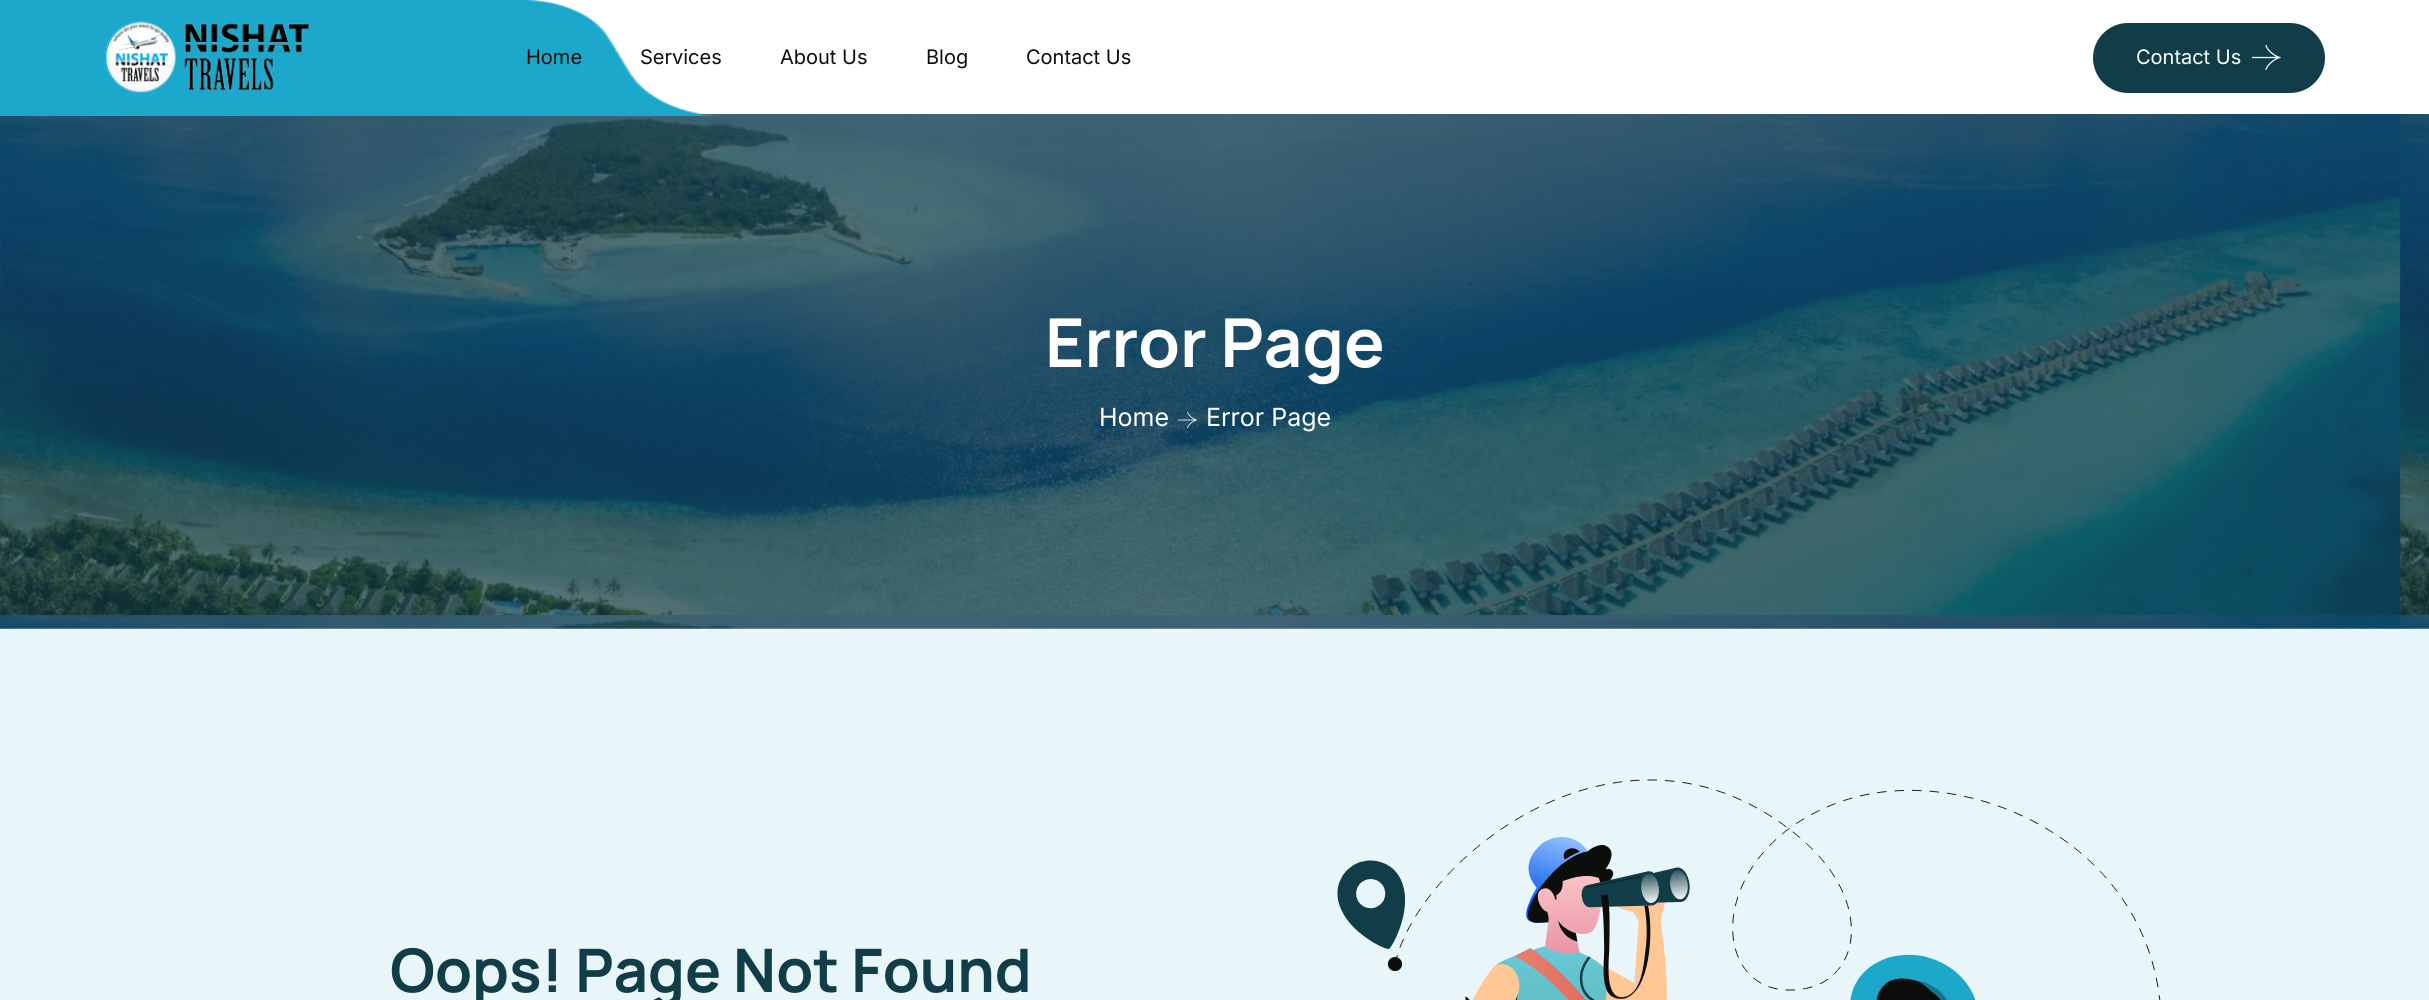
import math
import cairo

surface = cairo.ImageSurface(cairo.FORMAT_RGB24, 2429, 1000)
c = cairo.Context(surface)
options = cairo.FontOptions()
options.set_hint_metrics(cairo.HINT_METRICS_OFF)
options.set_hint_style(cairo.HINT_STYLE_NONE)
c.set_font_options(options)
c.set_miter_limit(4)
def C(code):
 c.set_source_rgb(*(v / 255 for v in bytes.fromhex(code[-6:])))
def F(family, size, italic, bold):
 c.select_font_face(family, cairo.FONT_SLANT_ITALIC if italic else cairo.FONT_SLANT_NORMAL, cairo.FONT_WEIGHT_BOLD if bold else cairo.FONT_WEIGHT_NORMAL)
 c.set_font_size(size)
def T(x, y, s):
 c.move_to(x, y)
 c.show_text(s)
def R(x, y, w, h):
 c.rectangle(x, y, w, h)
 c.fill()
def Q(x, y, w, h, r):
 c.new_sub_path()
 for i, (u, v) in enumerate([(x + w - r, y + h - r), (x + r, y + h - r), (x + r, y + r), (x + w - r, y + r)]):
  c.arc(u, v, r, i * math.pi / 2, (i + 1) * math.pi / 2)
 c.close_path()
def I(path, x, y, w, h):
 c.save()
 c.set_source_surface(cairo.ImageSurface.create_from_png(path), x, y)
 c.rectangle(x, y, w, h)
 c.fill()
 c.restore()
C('ffffff')
c.paint()
I('3.png',0,114,2429,515)
I('1.png',0,0,723,116)
I('2.png',105,21,204,72)
F('Inter',20,0,0)
C('0d0d0c')
T(526,64,'Home')
T(640,64,'Services')
T(780,64,'About Us')
T(926,64,'Blog')
T(1026,64,'Contact Us')
C('113d48')
Q(2093,23,232,70,35)
c.fill()
C('ffffff')
T(2136,64,'Contact Us')
c.new_path()
c.move_to(2266,45)
c.curve_to(2266,49.5,2276,57.5,2280.5,57.5)
c.move_to(2266,70)
c.curve_to(2266,65.5,2276,57.5,2280.5,57.5)
c.move_to(2280.5,57.5)
c.line_to(2252,57.5)
c.set_line_width(1.2)
c.stroke()
F('Manrope',67.5,0,1)
T(1045,367,'Error Page')
F('Inter',25,0,0)
T(1099,426,'Home')
I('4.png',1178,411,19,18)
T(1206,426,'Error Page')
C('e9f6f9')
R(0,629,2429,371)
F('Manrope',60,0,1)
C('113d48')
T(390,992,'Oops! Page Not Found')
I('5.png',1337,779,824,221)
surface.write_to_png('o.png')
